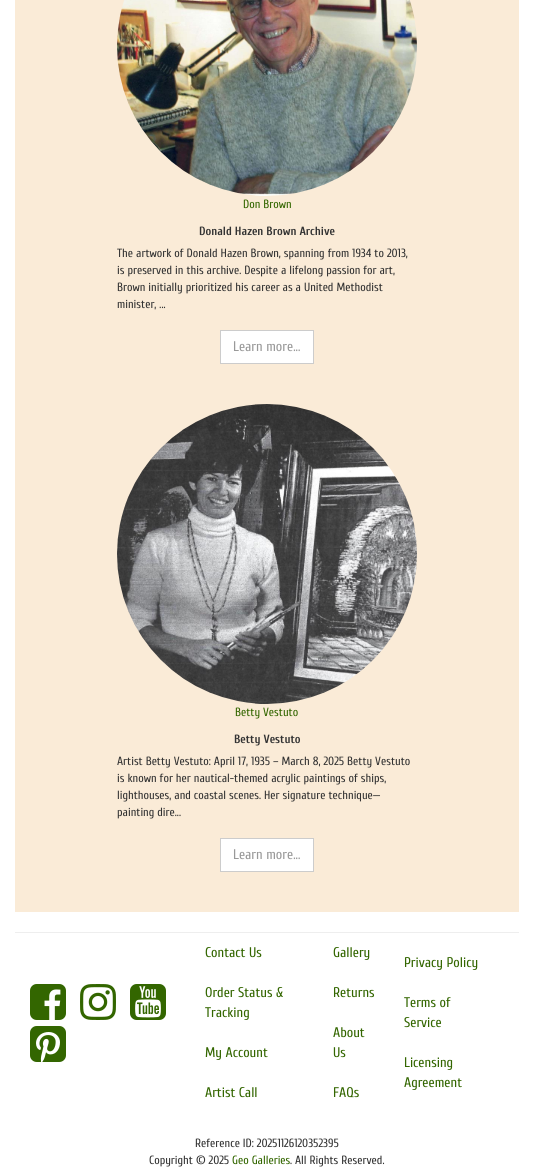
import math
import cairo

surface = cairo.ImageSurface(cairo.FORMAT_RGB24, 534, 1169)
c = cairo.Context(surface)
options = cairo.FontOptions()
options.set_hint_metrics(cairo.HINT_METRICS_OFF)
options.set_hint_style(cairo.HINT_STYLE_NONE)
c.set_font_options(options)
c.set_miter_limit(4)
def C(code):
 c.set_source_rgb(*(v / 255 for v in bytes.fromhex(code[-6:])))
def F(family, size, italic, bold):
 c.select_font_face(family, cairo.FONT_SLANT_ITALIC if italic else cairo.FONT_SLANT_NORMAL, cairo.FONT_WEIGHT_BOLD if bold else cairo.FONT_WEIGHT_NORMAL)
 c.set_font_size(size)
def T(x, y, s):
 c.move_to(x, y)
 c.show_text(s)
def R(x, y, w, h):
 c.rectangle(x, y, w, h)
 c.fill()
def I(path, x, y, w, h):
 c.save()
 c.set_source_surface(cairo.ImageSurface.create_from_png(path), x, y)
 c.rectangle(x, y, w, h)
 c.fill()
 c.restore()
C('ffffff')
c.paint()
C('faebd7')
R(15,0,504,912)
I('1.png',117,0,300,196)
F('Cuprum',11.9,0,0)
C('336600')
T(243,208,'Don Brown')
F('Cuprum',11.9,0,1)
C('333333')
T(199,235,'Donald Hazen Brown Archive')
F('Cuprum',11.9,0,0)
T(117,257,'The artwork of Donald Hazen Brown, spanning from 1934 to 2013,')
T(117,274,'is preserved in this archive. Despite a lifelong passion for art,')
T(117,291,'Brown initially prioritized his career as a United Methodist')
T(117,308,'minister, ...')
C('ffffff')
c.rectangle(220.5,330.5,93,33)
c.fill_preserve()
C('cccccc')
c.set_line_width(1)
c.stroke()
F('Cuprum',14,0,0)
C('999999')
T(233,351,'Learn more...')
I('2.png',117,404,300,300)
F('Cuprum',11.9,0,0)
C('336600')
T(235,716,'Betty Vestuto')
F('Cuprum',11.9,0,1)
C('333333')
T(234,743,'Betty Vestuto')
F('Cuprum',11.9,0,0)
T(117,765,'Artist Betty Vestuto: April 17, 1935 – March 8, 2025 Betty Vestuto')
T(117,782,'is known for her nautical-themed acrylic paintings of ships,')
T(117,799,'lighthouses, and coastal scenes. Her signature technique—')
T(117,816,'painting dire...')
C('ffffff')
c.rectangle(220.5,838.5,93,33)
c.fill_preserve()
C('cccccc')
c.stroke()
F('Cuprum',14,0,0)
C('999999')
T(233,859,'Learn more...')
C('eeeeee')
R(15,932,504,1)
I('3.png',30,984,36,36)
I('4.png',80,984,36,36)
I('5.png',130,984,36,36)
I('6.png',30,1026,36,36)
C('336600')
T(205,957,'Contact Us')
T(205,997,'Order Status &')
T(205,1017,'Tracking')
T(205,1057,'My Account')
T(205,1097,'Artist Call')
T(333,957,'Gallery')
T(333,997,'Returns')
T(333,1037,'About')
T(333,1057,'Us')
T(333,1097,'FAQs')
T(404,967,'Privacy Policy')
T(404,1007,'Terms of')
T(404,1027,'Service')
T(404,1067,'Licensing')
T(404,1087,'Agreement')
F('Cuprum',11.9,0,0)
C('333333')
T(195,1147,'Reference ID: 20251126120352395')
T(149,1164,'Copyright © 2025')
C('336600')
T(232,1164,'Geo Galleries')
C('333333')
T(290,1164,'. All Rights Reserved.')
surface.write_to_png('o.png')
